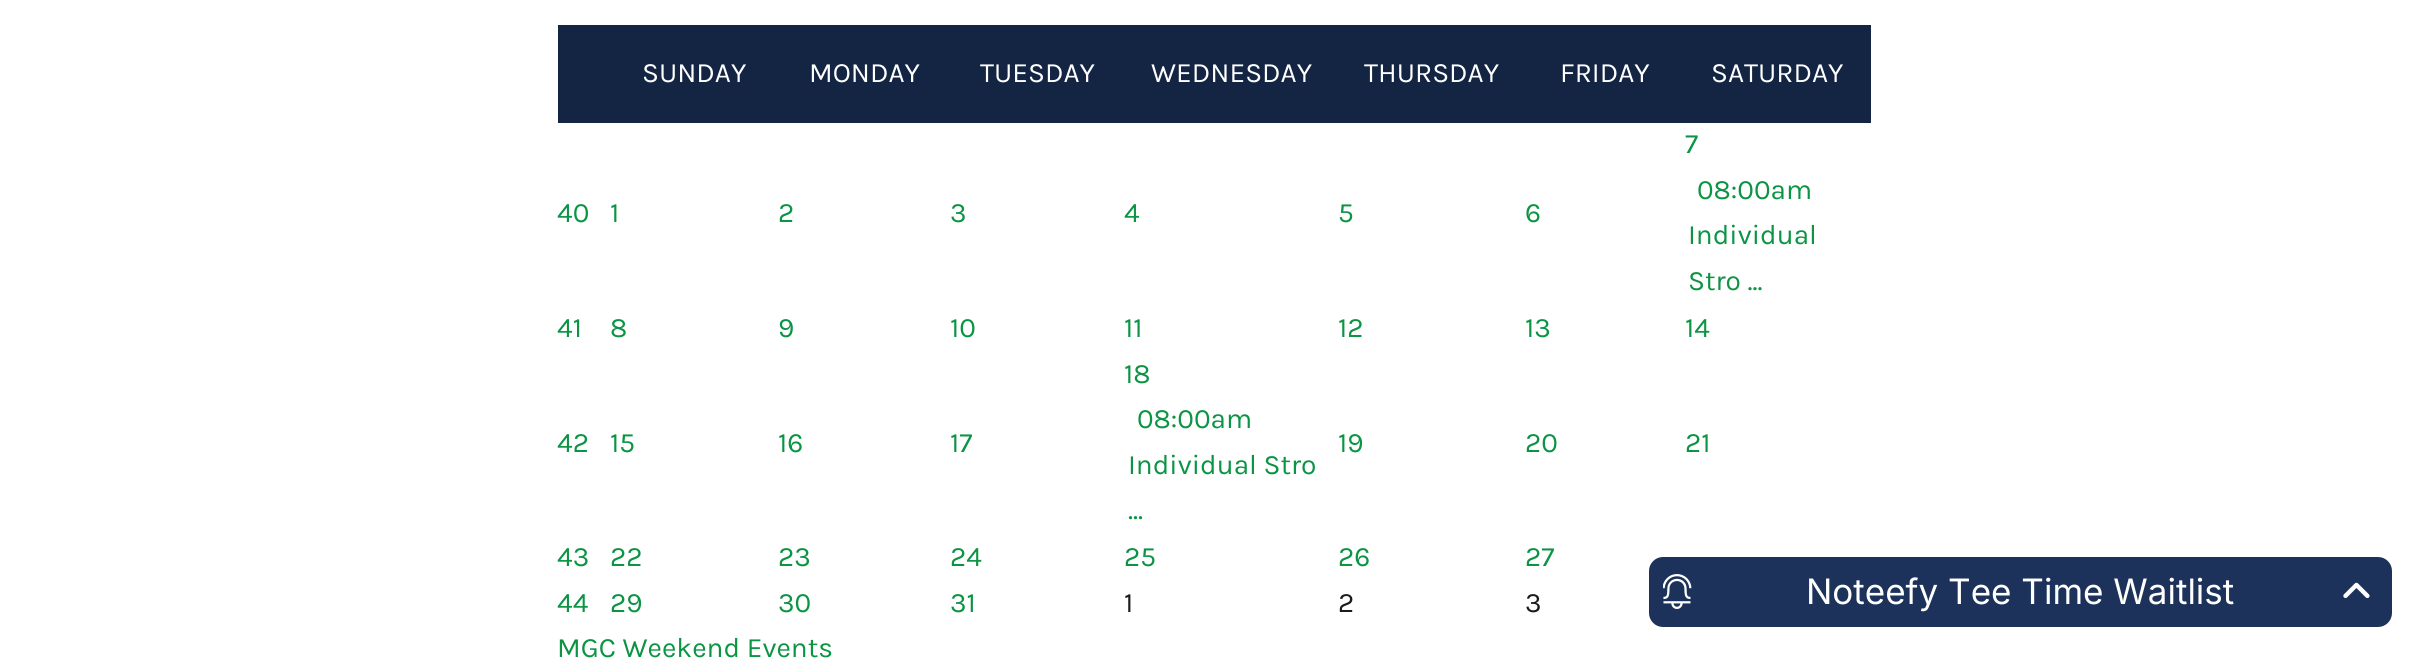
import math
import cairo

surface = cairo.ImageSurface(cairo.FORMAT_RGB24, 2427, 660)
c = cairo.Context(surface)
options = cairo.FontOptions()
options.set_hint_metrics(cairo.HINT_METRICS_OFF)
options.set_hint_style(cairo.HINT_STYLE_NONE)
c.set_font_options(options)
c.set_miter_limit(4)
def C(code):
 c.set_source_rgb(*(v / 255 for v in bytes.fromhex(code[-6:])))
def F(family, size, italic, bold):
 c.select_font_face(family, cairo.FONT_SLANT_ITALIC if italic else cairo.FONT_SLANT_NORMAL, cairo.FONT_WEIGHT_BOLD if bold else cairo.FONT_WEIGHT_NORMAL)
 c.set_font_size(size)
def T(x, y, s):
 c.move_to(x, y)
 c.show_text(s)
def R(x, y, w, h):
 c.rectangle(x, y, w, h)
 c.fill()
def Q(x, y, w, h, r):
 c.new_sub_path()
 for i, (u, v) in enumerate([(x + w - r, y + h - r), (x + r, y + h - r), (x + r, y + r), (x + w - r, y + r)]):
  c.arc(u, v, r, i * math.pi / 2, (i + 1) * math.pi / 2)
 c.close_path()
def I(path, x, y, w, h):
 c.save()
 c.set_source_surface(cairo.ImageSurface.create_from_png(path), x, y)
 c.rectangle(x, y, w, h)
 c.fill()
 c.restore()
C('ffffff')
c.paint()
C('132543')
R(558,25,1313,98)
F('Karla',28,0,0)
C('ffffff')
T(642,82,'SUNDAY')
T(809,82,'MONDAY')
T(980,82,'TUESDAY')
T(1151,82,'WEDNESDAY')
T(1364,82,'THURSDAY')
T(1560,82,'FRIDAY')
T(1711,82,'SATURDAY')
C('0b9444')
T(557,222,'40')
T(610,222,'1')
T(778,222,'2')
T(950,222,'3')
T(1124,222,'4')
T(1338,222,'5')
T(1525,222,'6')
T(1685,153,'7')
T(1697,199,'08:00am')
T(1688,244,'Individual')
T(1688,290,'Stro ...')
T(557,337,'41')
T(610,337,'8')
T(778,337,'9')
T(950,337,'10')
T(1124,337,'11')
T(1338,337,'12')
T(1525,337,'13')
T(1685,337,'14')
T(557,452,'42')
T(610,452,'15')
T(778,452,'16')
T(950,452,'17')
T(1124,383,'18')
T(1137,428,'08:00am')
T(1128,474,'Individual Stro')
T(1128,519,'...')
T(1338,452,'19')
T(1525,452,'20')
T(1685,452,'21')
T(557,566,'43')
T(610,566,'22')
T(778,566,'23')
T(950,566,'24')
T(1124,566,'25')
T(1338,566,'26')
T(1525,566,'27')
T(557,612,'44')
T(610,612,'29')
T(778,612,'30')
T(950,612,'31')
C('1b1b1b')
T(1124,612,'1')
T(1338,612,'2')
T(1525,612,'3')
C('0b9444')
T(557,657,'MGC Weekend Events')
C('1c325a')
Q(1649,557,743,70,14)
c.fill()
I('1.png',1663,574,29,35)
F('Inter',35,0,0)
C('ffffff')
T(1806,604,'Noteefy Tee Time Waitlist')
I('2.png',2343,582,27,17)
surface.write_to_png('o.png')
